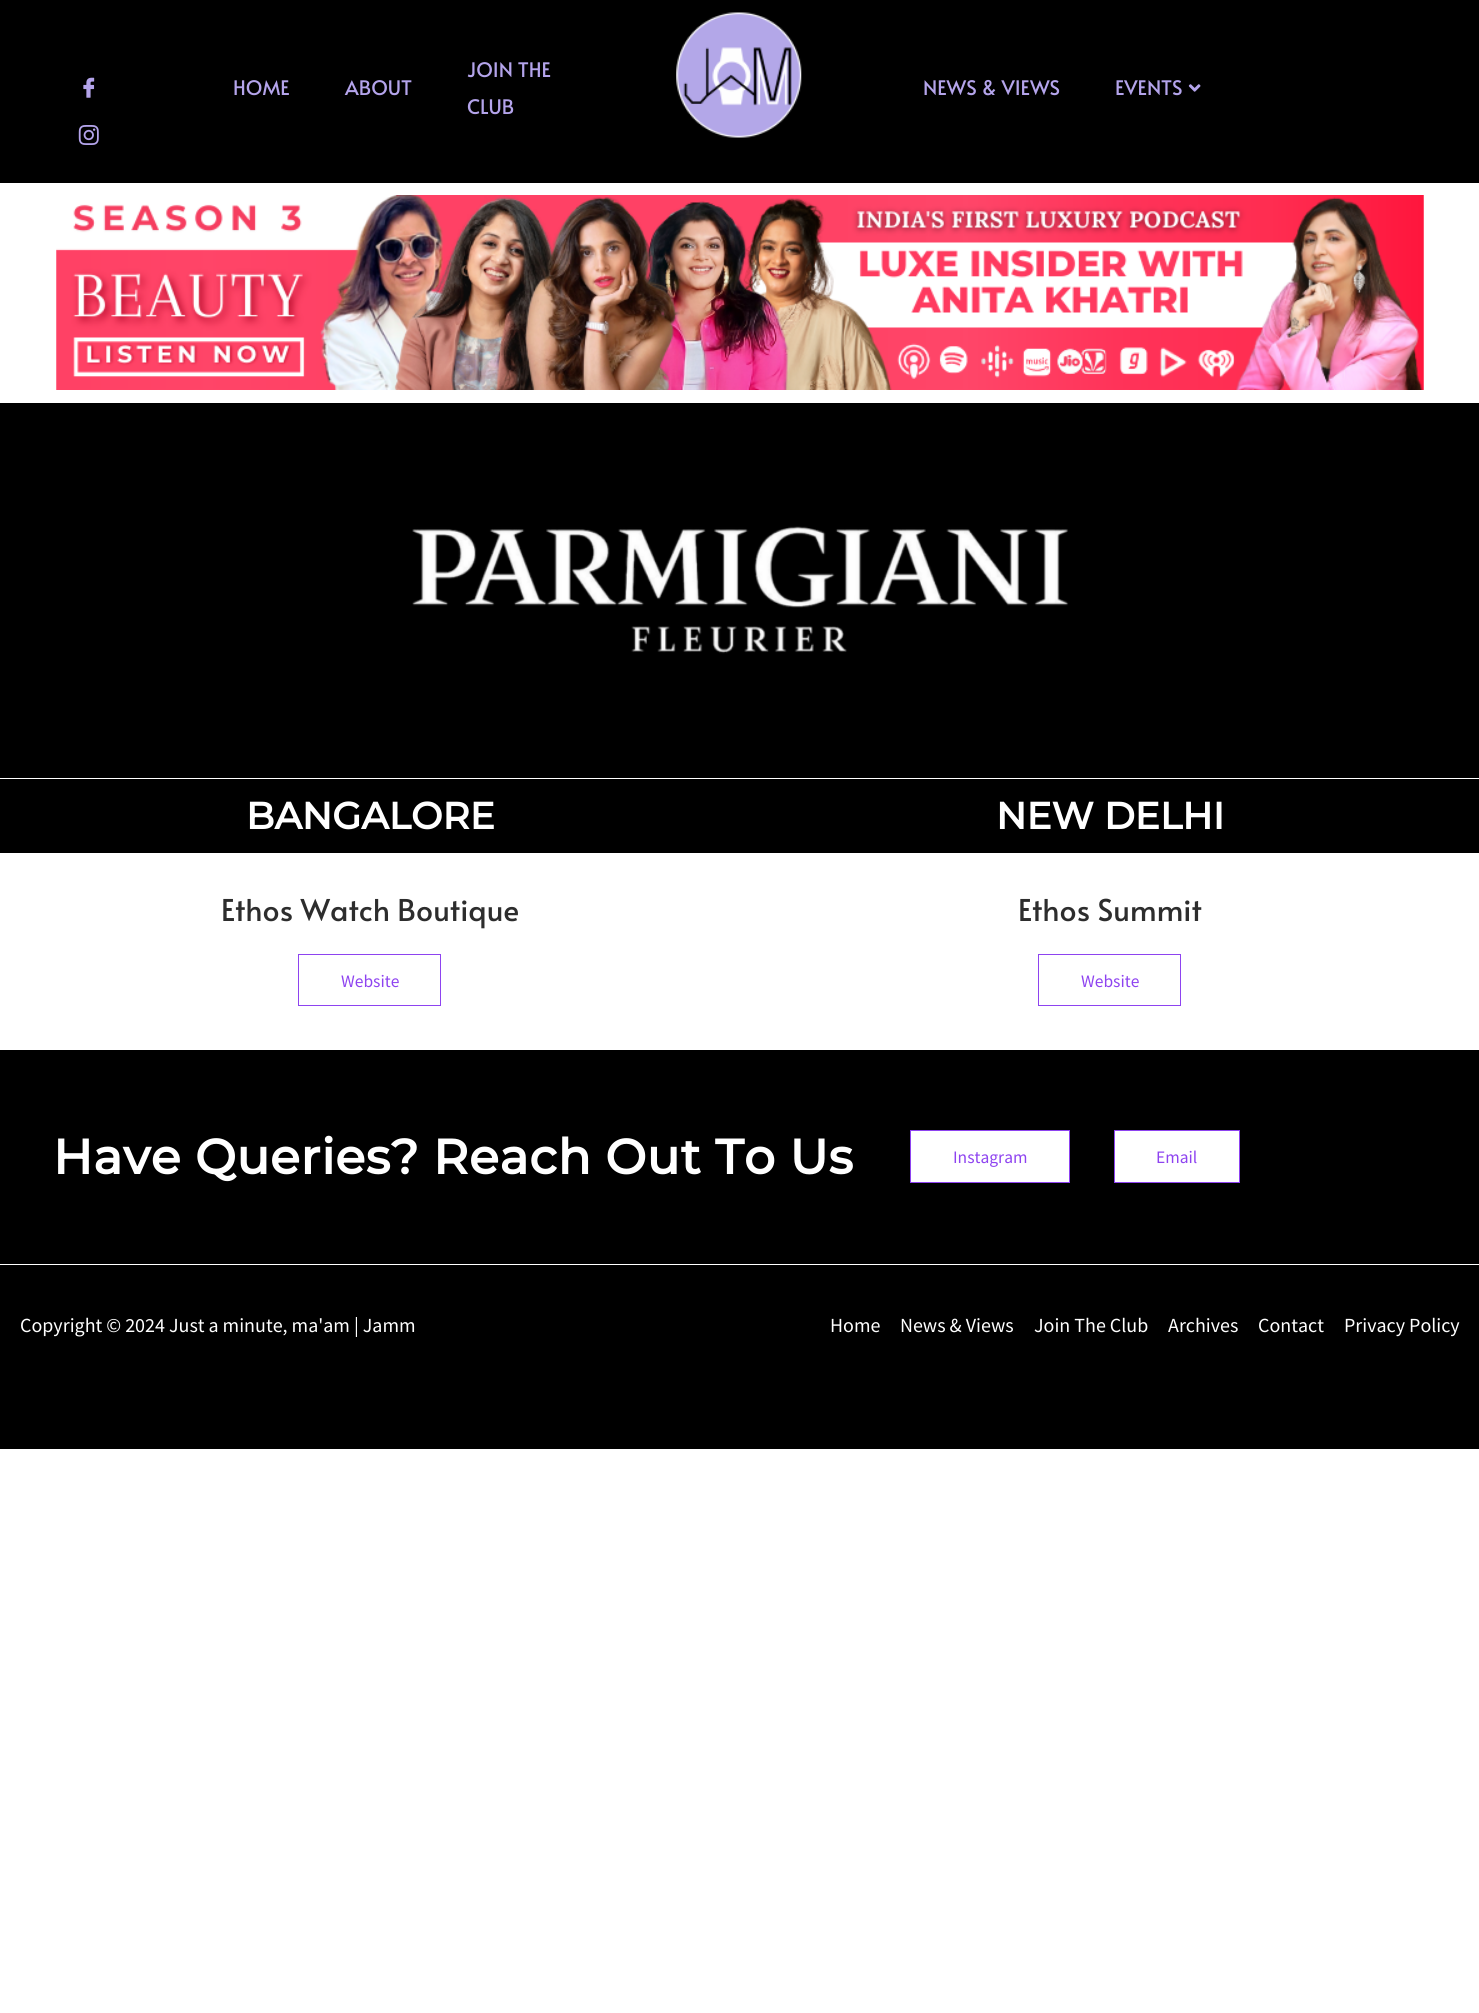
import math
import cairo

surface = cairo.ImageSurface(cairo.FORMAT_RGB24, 1479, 2013)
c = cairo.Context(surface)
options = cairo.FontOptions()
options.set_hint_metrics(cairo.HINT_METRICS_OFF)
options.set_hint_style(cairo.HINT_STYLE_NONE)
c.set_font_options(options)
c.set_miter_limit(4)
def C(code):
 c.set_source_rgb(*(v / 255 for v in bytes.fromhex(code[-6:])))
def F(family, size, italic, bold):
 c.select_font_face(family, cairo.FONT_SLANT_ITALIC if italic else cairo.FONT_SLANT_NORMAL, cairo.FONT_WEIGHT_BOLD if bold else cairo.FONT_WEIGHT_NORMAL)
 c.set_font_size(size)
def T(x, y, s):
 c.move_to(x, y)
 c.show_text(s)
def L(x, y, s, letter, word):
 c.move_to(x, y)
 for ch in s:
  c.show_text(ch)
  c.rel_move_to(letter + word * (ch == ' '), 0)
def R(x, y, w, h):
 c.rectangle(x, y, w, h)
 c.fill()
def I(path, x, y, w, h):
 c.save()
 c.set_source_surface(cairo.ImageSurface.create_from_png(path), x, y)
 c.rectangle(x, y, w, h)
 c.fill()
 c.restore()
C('ffffff')
c.paint()
C('000000')
R(0,0,1479,183)
I('1.png',83,77,12,21)
I('2.png',78,125,21,20)
F('Alata',20,0,0)
C('b4a4eb')
T(233,95,'HOME')
T(345,95,'ABOUT')
T(467,77,'JOIN THE')
T(467,114,'CLUB')
I('3.png',676,12,126,126)
T(923,95,'NEWS & VIEWS')
T(1115,95,'EVENTS')
I('4.png',1188,84,13,8)
I('5.png',56,195,1368,195)
C('000000')
R(0,403,1479,375)
I('6.png',412,526,657,128)
R(0,779,1479,74)
F('Montserrat',37.5,0,1)
C('ffffff')
T(246,829,'BANGALORE')
T(996,829,'NEW DELHI')
F('Alata',30,0,0)
C('2d2d2d')
T(221,921,'Ethos Watch Boutique')
c.rectangle(298.5,954.5,142,51)
C('8e43f0')
c.set_line_width(1)
c.stroke()
F('Source Sans Pro',17.5,0,0)
T(341,987,'Website')
F('Alata',30,0,0)
C('2d2d2d')
T(1018,921,'Ethos Summit')
c.rectangle(1038.5,954.5,142,51)
C('8e43f0')
c.stroke()
F('Source Sans Pro',17.5,0,0)
T(1081,987,'Website')
C('000000')
R(0,1050,1479,214)
F('Montserrat',48.75,0,1)
C('ffffff')
L(53,1174,'Have Queries? Reach Out To Us',.6,0)
c.rectangle(910.5,1130.5,159,52)
c.fill_preserve()
C('8e43f0')
c.stroke()
F('Source Sans Pro',17.5,0,0)
T(953,1163,'Instagram')
C('ffffff')
c.rectangle(1114.5,1130.5,125,52)
c.fill_preserve()
C('8e43f0')
c.stroke()
T(1156,1163,'Email')
C('000000')
R(0,1265,1479,184)
F('Source Sans Pro',20,0,0)
C('ffffff')
T(20,1332,'Copyright © 2024 Just a minute, ma\'am | Jamm')
T(830,1332,'Home')
T(900,1332,'News & Views')
T(1034,1332,'Join The Club')
T(1168,1332,'Archives')
T(1258,1332,'Contact')
T(1344,1332,'Privacy Policy')
surface.write_to_png('o.png')
